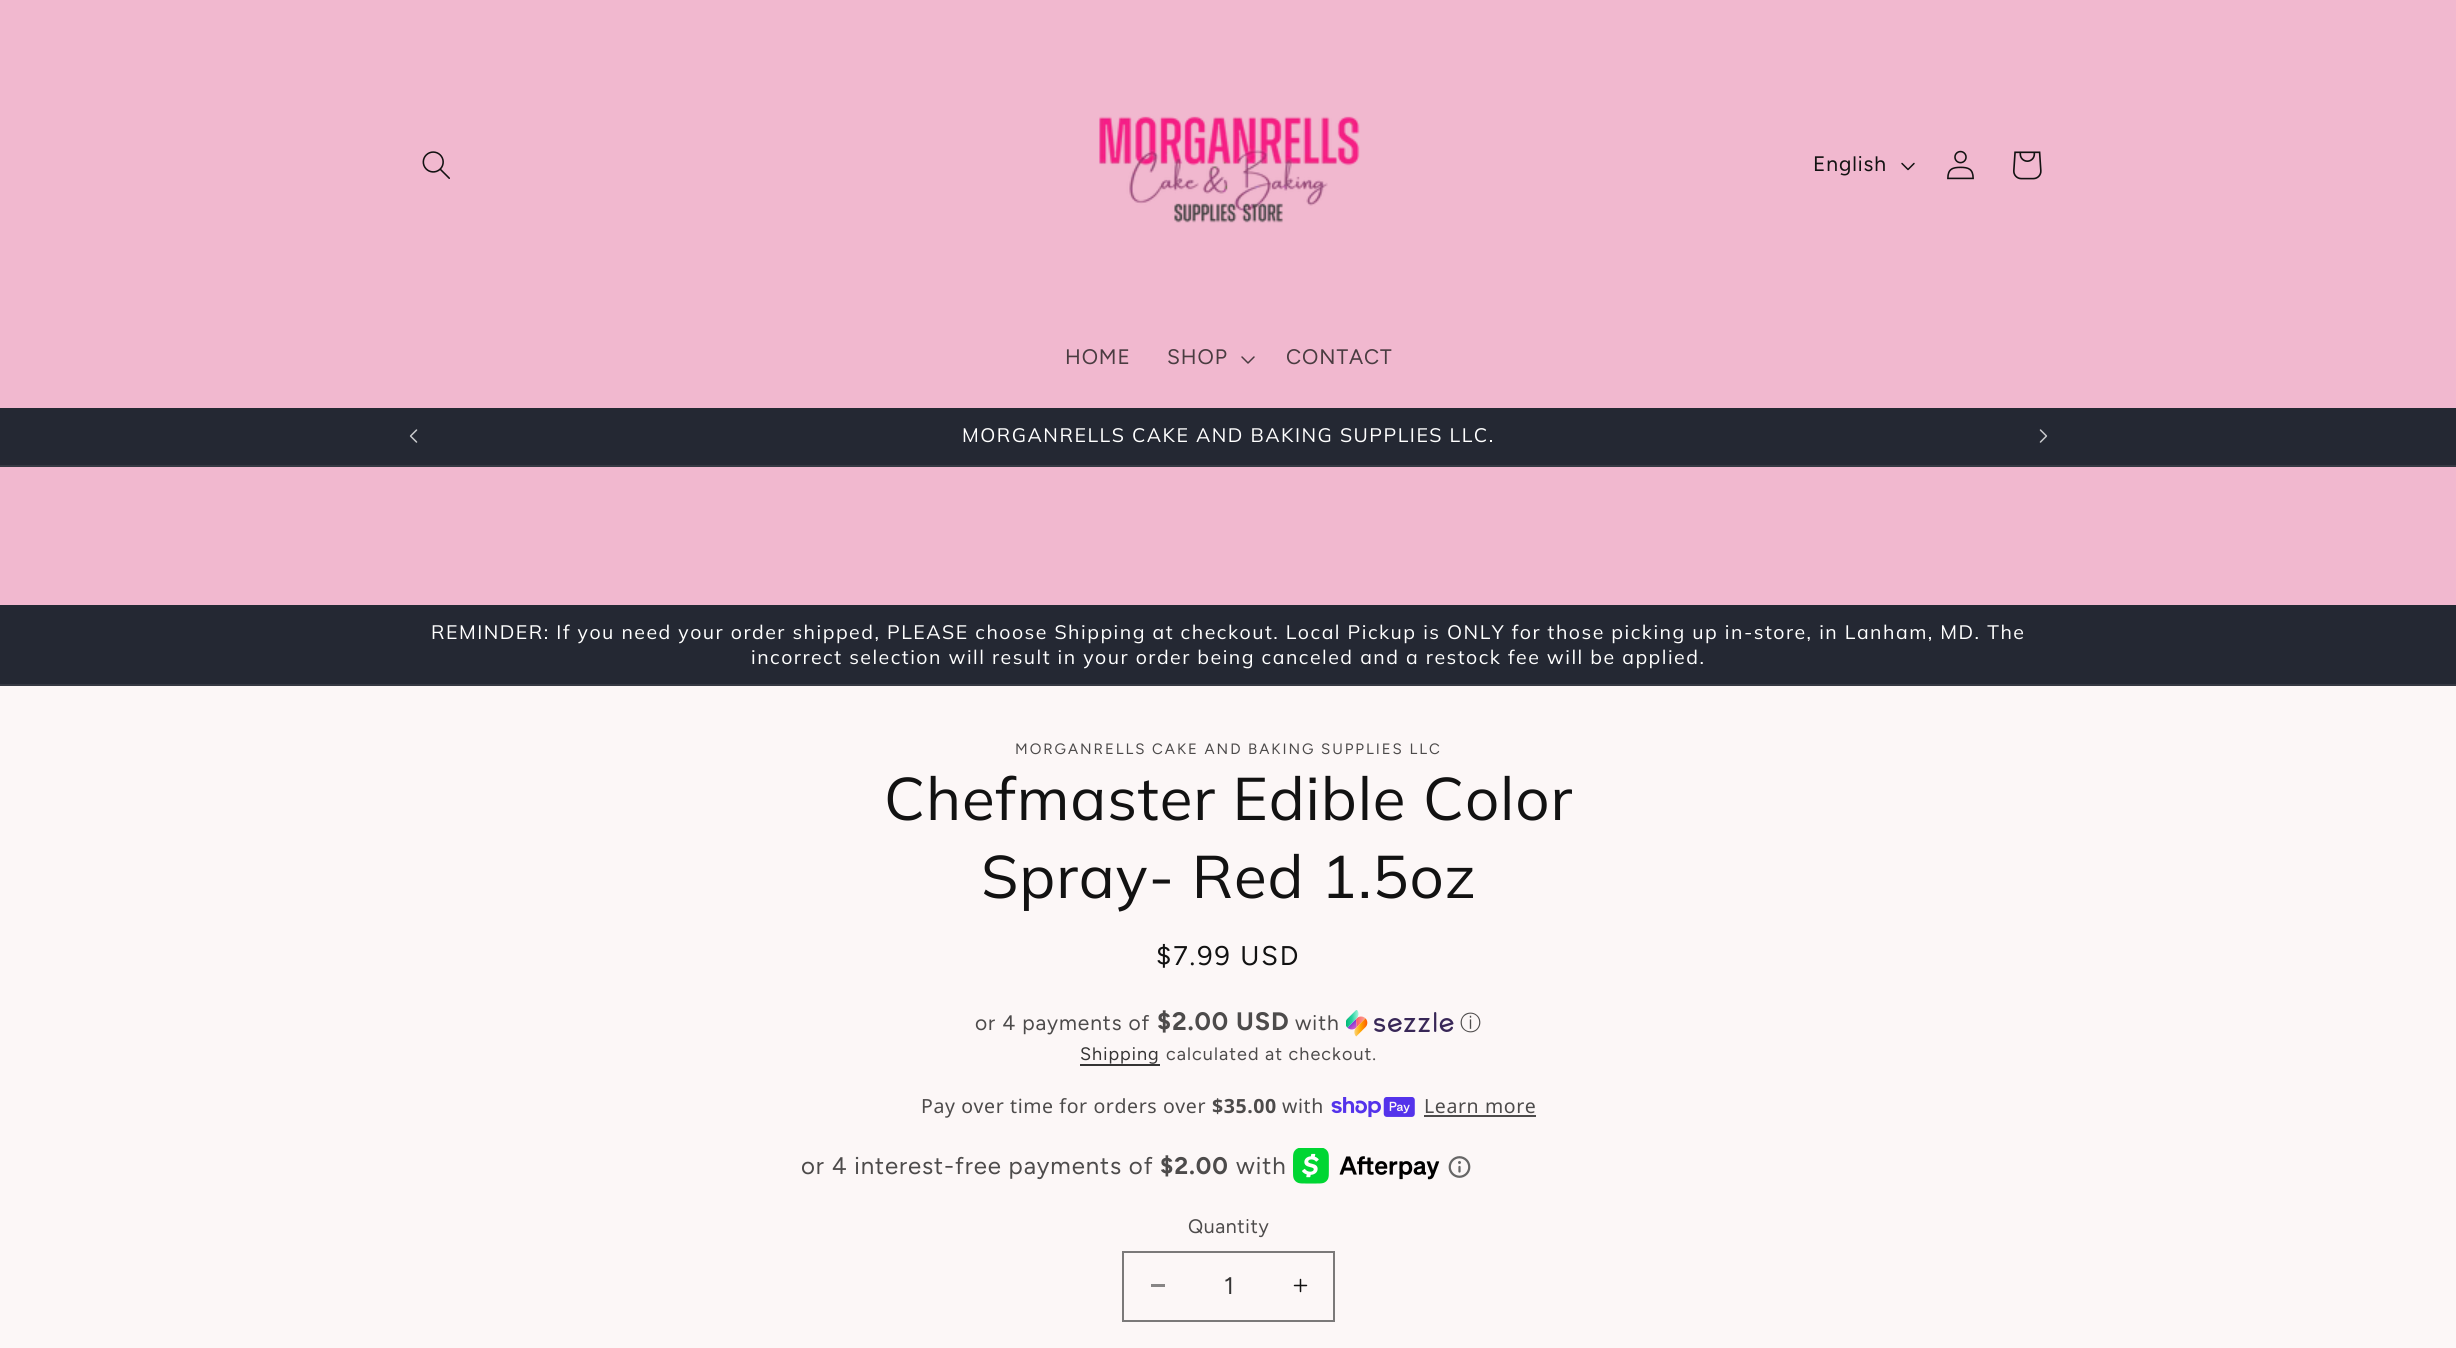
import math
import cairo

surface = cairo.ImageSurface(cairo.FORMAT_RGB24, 2456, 1348)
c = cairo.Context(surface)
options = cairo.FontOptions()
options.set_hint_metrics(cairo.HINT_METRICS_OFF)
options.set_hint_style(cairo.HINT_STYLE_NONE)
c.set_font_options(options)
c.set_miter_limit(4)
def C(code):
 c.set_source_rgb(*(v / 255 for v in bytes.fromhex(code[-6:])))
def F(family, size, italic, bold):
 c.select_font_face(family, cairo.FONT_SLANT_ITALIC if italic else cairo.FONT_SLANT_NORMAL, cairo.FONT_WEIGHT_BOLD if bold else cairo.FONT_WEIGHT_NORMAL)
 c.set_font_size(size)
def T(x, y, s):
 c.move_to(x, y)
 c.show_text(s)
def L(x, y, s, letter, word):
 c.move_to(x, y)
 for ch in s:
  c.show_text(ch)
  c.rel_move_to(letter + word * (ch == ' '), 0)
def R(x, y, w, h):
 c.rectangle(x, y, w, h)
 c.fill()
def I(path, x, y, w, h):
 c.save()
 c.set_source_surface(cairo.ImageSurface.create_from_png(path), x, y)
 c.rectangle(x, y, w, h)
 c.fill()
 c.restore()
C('f1b8cf')
c.paint()
I('1.png',422,151,28,28)
I('2.png',1099,116,261,107)
F('Figtree',21,0,0)
C('121212')
L(1813,171,'English',.9,0)
I('3.png',1901,162,14,9)
I('4.png',1947,150,27,30)
I('5.png',2013,151,29,29)
C('4a3c41')
L(1065,364,'HOME',.9,0)
L(1167,364,'SHOP',.9,0)
I('6.png',1241,356,14,8)
L(1286,364,'CONTACT',.9,0)
C('242833')
R(0,408,2456,57)
C('363943')
R(0,465,2456,2)
I('7.png',409,429,9,14)
F('Muli',19.5,0,0)
C('ffffff')
L(962,442,'MORGANRELLS CAKE AND BAKING SUPPLIES LLC.',1.5,0)
I('8.png',2039,429,9,14)
C('242833')
R(0,605,2456,79)
C('363943')
R(0,684,2456,2)
C('ffffff')
L(431,639,'REMINDER: If you need your order shipped, PLEASE choose Shipping at checkout. Local Pickup is ONLY for those picking up in-store, in Lanham, MD. The',1.5,0)
L(751,664,'incorrect selection will result in your order being canceled and a restock fee will be applied.',1.5,0)
C('fcf7f7')
R(0,686,2456,662)
F('Figtree',15,0,0)
C('4d4b4b')
L(1015,754,'MORGANRELLS CAKE AND BAKING SUPPLIES LLC',1.95,0)
F('Muli',60,0,0)
C('121212')
L(884,820,'Chefmaster Edible Color',.9,0)
L(981,898,'Spray- Red 1.5oz',.9,0)
F('Figtree',27,0,0)
L(1156,965,'$7.99 USD',1.95,0)
F('Figtree',21,0,0)
C('4d4b4b')
L(975,1030,'or 4 payments of',.9,0)
F('Figtree',25.25,0,1)
L(1157,1030,'$2.00 USD',.9,0)
F('Figtree',21,0,0)
L(1295,1030,'with',.9,0)
I('9.png',1346,1010,108,27)
F('WenQuanYi Zen Hei Medium',21,0,0)
L(1460,1030,'ⓘ',.9,0)
F('Figtree',18,0,0)
C('353434')
L(1080,1060,'Shipping',1.05,0)
R(1080,1064,80,2)
C('4d4b4b')
L(1166,1060,'calculated at checkout.',1.05,0)
F('Noto Sans',19.5,0,0)
L(921,1113,'Pay over time for orders over',.6,0)
F('Noto Sans',19.5,0,1)
L(1212,1113,'$35.00',.6,0)
F('Noto Sans',19.5,0,0)
L(1282,1113,'with',.6,0)
I('10.png',1331,1097,84,21)
L(1424,1113,'Learn more',.6,0)
R(1424,1115,112,2)
F('Figtree',24,0,0)
L(801,1174,'or 4 interest-free payments of',.9,0)
F('Figtree',24,0,1)
L(1160,1174,'$2.00',.9,0)
F('Figtree',24,0,0)
L(1236,1174,'with',.9,0)
I('11.png',1293,1148,147,36)
I('12.png',1448,1156,23,22)
F('Figtree',19.5,0,0)
L(1188,1233,'Quantity',.6,0)
C('878585')
R(1151,1284,14,3)
I('13.png',1293,1278,15,15)
c.rectangle(1123,1252,211,69)
C('7b7979')
c.stroke()
F('Figtree',24,0,0)
C('353434')
T(1224,1294,'1')
surface.write_to_png('o.png')
